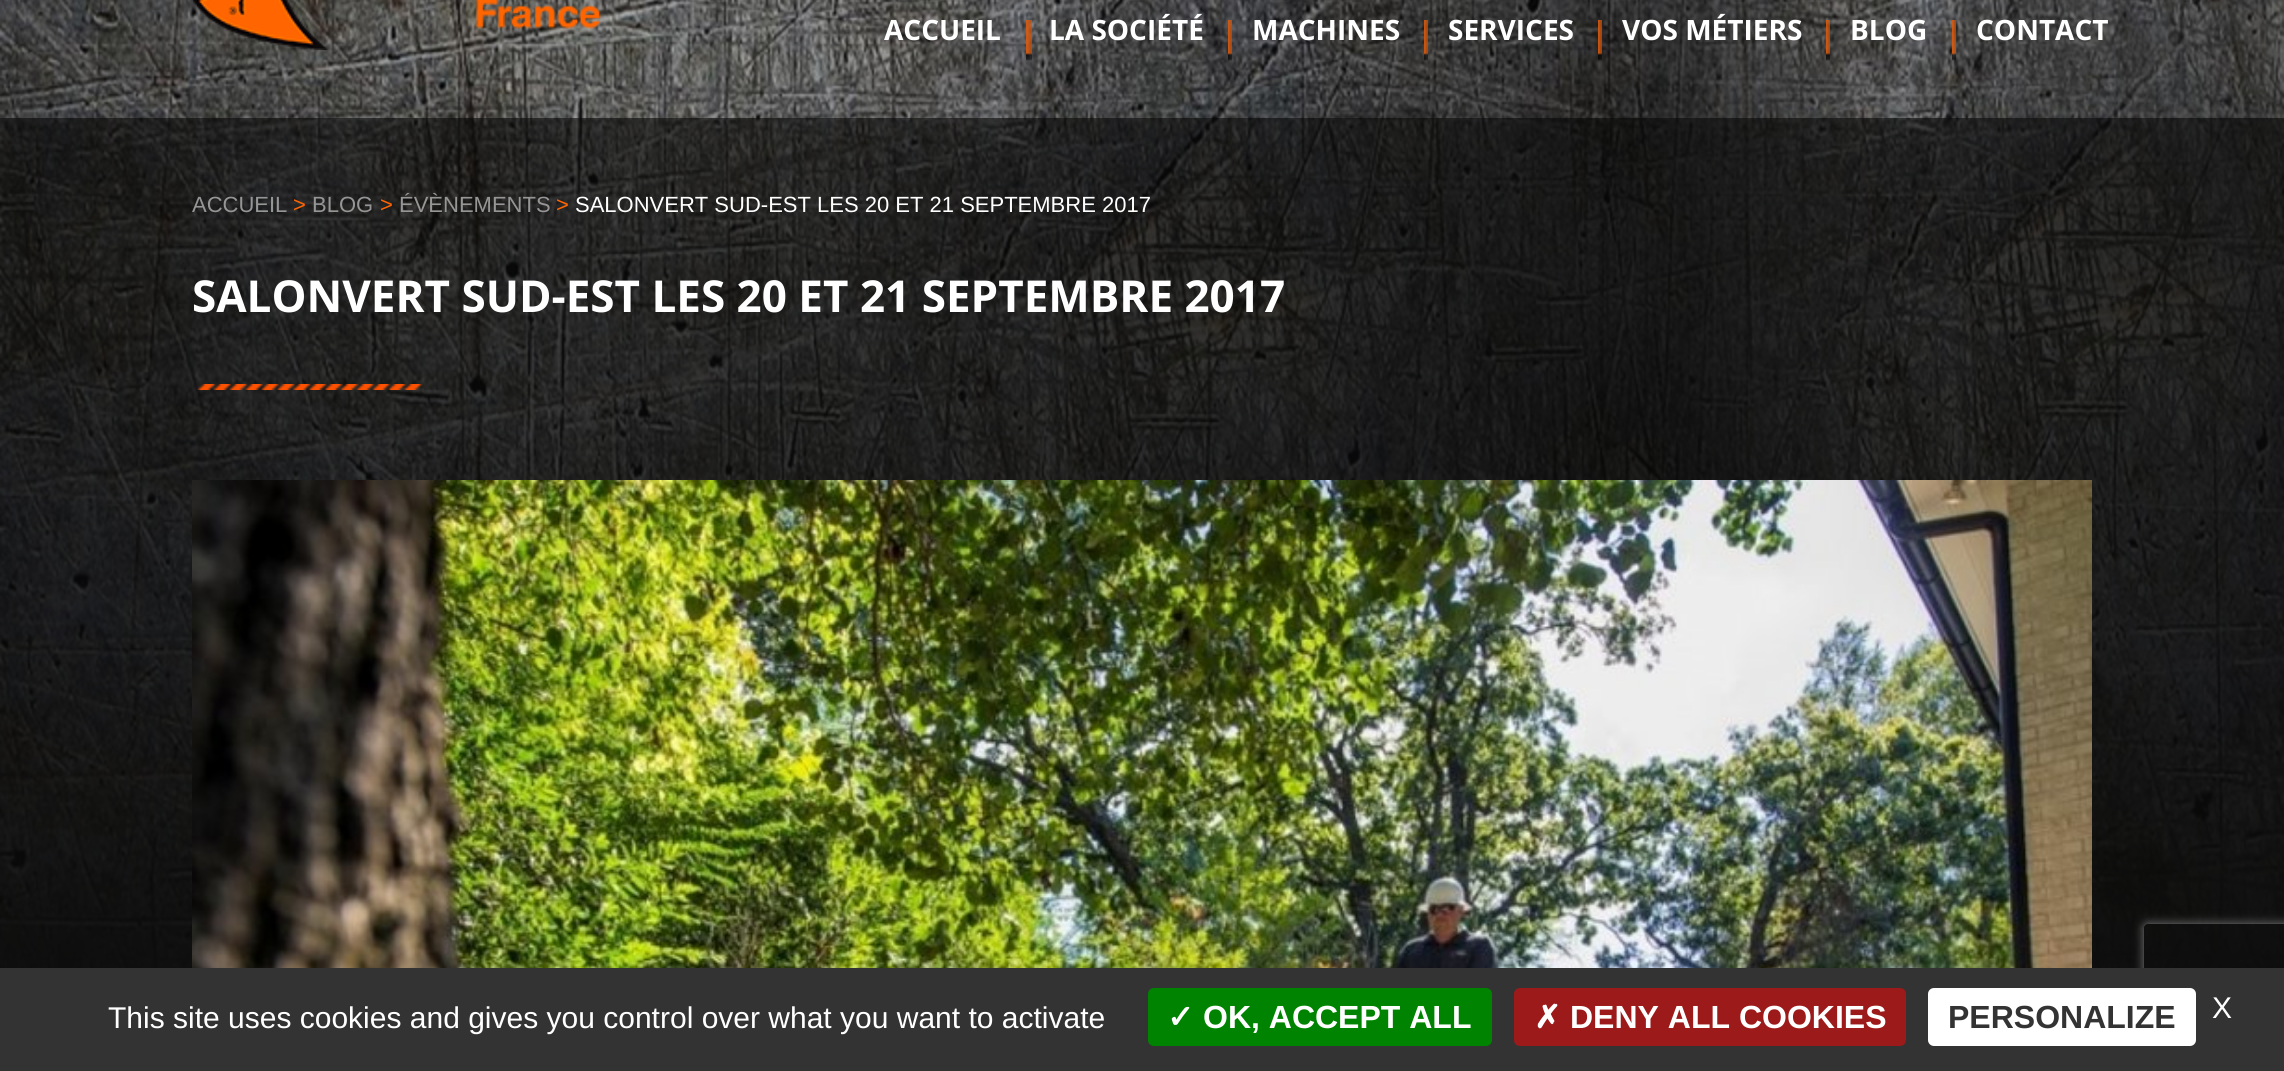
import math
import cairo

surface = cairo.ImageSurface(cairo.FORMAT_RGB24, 2284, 1071)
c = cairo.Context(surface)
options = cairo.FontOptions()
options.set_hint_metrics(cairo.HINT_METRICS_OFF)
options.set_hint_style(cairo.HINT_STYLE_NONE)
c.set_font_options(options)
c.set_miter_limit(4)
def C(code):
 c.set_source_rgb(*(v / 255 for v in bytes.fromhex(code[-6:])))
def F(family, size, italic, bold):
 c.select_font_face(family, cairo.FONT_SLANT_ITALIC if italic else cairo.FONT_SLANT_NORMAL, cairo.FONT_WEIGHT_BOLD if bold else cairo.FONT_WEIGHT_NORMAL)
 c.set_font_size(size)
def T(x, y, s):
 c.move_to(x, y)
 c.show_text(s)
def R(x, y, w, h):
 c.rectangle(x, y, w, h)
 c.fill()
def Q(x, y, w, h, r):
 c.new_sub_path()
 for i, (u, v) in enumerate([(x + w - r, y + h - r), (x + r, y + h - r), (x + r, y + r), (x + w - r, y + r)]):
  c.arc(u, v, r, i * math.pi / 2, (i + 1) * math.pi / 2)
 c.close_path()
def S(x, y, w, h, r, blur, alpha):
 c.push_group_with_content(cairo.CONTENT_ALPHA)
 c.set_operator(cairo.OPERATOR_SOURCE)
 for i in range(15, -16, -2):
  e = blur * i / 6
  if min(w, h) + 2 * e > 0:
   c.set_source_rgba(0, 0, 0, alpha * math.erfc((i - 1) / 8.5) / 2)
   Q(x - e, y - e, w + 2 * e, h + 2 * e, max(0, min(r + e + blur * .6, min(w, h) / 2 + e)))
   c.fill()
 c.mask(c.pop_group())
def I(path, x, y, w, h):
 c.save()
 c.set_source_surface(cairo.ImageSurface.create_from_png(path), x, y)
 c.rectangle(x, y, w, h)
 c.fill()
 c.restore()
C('ffffff')
c.paint()
I('1.png',0,0,2284,968)
I('2.png',191,0,411,50)
F('Open Sans',28,0,1)
C('ffffff')
T(884,40,'ACCUEIL')
I('3.png',1026,20,6,41)
T(1049,40,'LA SOCIÉTÉ')
I('4.png',1228,20,4,41)
T(1252,40,'MACHINES')
I('5.png',1424,20,4,41)
T(1448,40,'SERVICES')
I('6.png',1598,20,4,41)
T(1622,40,'VOS MÉTIERS')
I('7.png',1826,20,4,41)
T(1850,40,'BLOG')
I('8.png',1952,20,4,41)
T(1976,40,'CONTACT')
c.set_source_rgba(0.035,0.035,0.035,0.6)
R(0,118,2284,850)
F('Liberation Sans',22,0,0)
C('969696')
T(192,212,'ACCUEIL')
C('ff6501')
T(293,212,'>')
C('969696')
T(312,212,'BLOG')
C('ff6501')
T(380,212,'>')
C('969696')
T(399,212,'ÉVÈNEMENTS')
C('ff6501')
T(556,212,'>')
C('ffffff')
T(575,212,'SALONVERT SUD-EST LES 20 ET 21 SEPTEMBRE 2017')
I('9.png',197,384,226,6)
F('Open Sans',44,0,1)
T(192,312,'SALONVERT SUD-EST LES 20 ET 21 SEPTEMBRE 2017')
I('10.png',192,480,1900,488)
c.save()
c.set_fill_rule(cairo.FILL_RULE_EVEN_ODD)
c.new_path()
c.move_to(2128,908)
c.line_to(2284,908)
c.line_to(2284,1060)
c.line_to(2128,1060)
c.close_path()
c.move_to(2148,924)
c.line_to(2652,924)
c.curve_to(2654,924,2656,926,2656,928)
c.line_to(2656,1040)
c.curve_to(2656,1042,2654,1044,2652,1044)
c.line_to(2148,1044)
c.curve_to(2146,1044,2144,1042,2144,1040)
c.line_to(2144,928)
c.curve_to(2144,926,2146,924,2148,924)
c.close_path()
c.clip()
C('808080')
S(2144,924,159,120,4,5,1)
c.restore()
C('333333')
R(0,968,2284,103)
F('Liberation Sans',30,0,0)
C('ffffff')
T(108,1028,'This site uses cookies and gives you control over what you want to activate')
C('008300')
Q(1148,988,344,58,6)
c.fill()
F('DejaVu Sans',32,0,1)
C('ffffff')
T(1167,1028,'✓')
F('Liberation Sans',32,0,1)
T(1203,1028,'OK, ACCEPT ALL')
C('9c1a1a')
Q(1514,988,392,58,6)
c.fill()
F('DejaVu Sans',32,0,1)
C('ffffff')
T(1534,1028,'✗')
F('Liberation Sans',32,0,1)
T(1570,1028,'DENY ALL COOKIES')
Q(1928,988,268,58,6)
c.fill()
C('333333')
T(1948,1028,'PERSONALIZE')
F('Liberation Sans',30,0,0)
C('ffffff')
T(2212,1018,'X')
surface.write_to_png('o.png')
